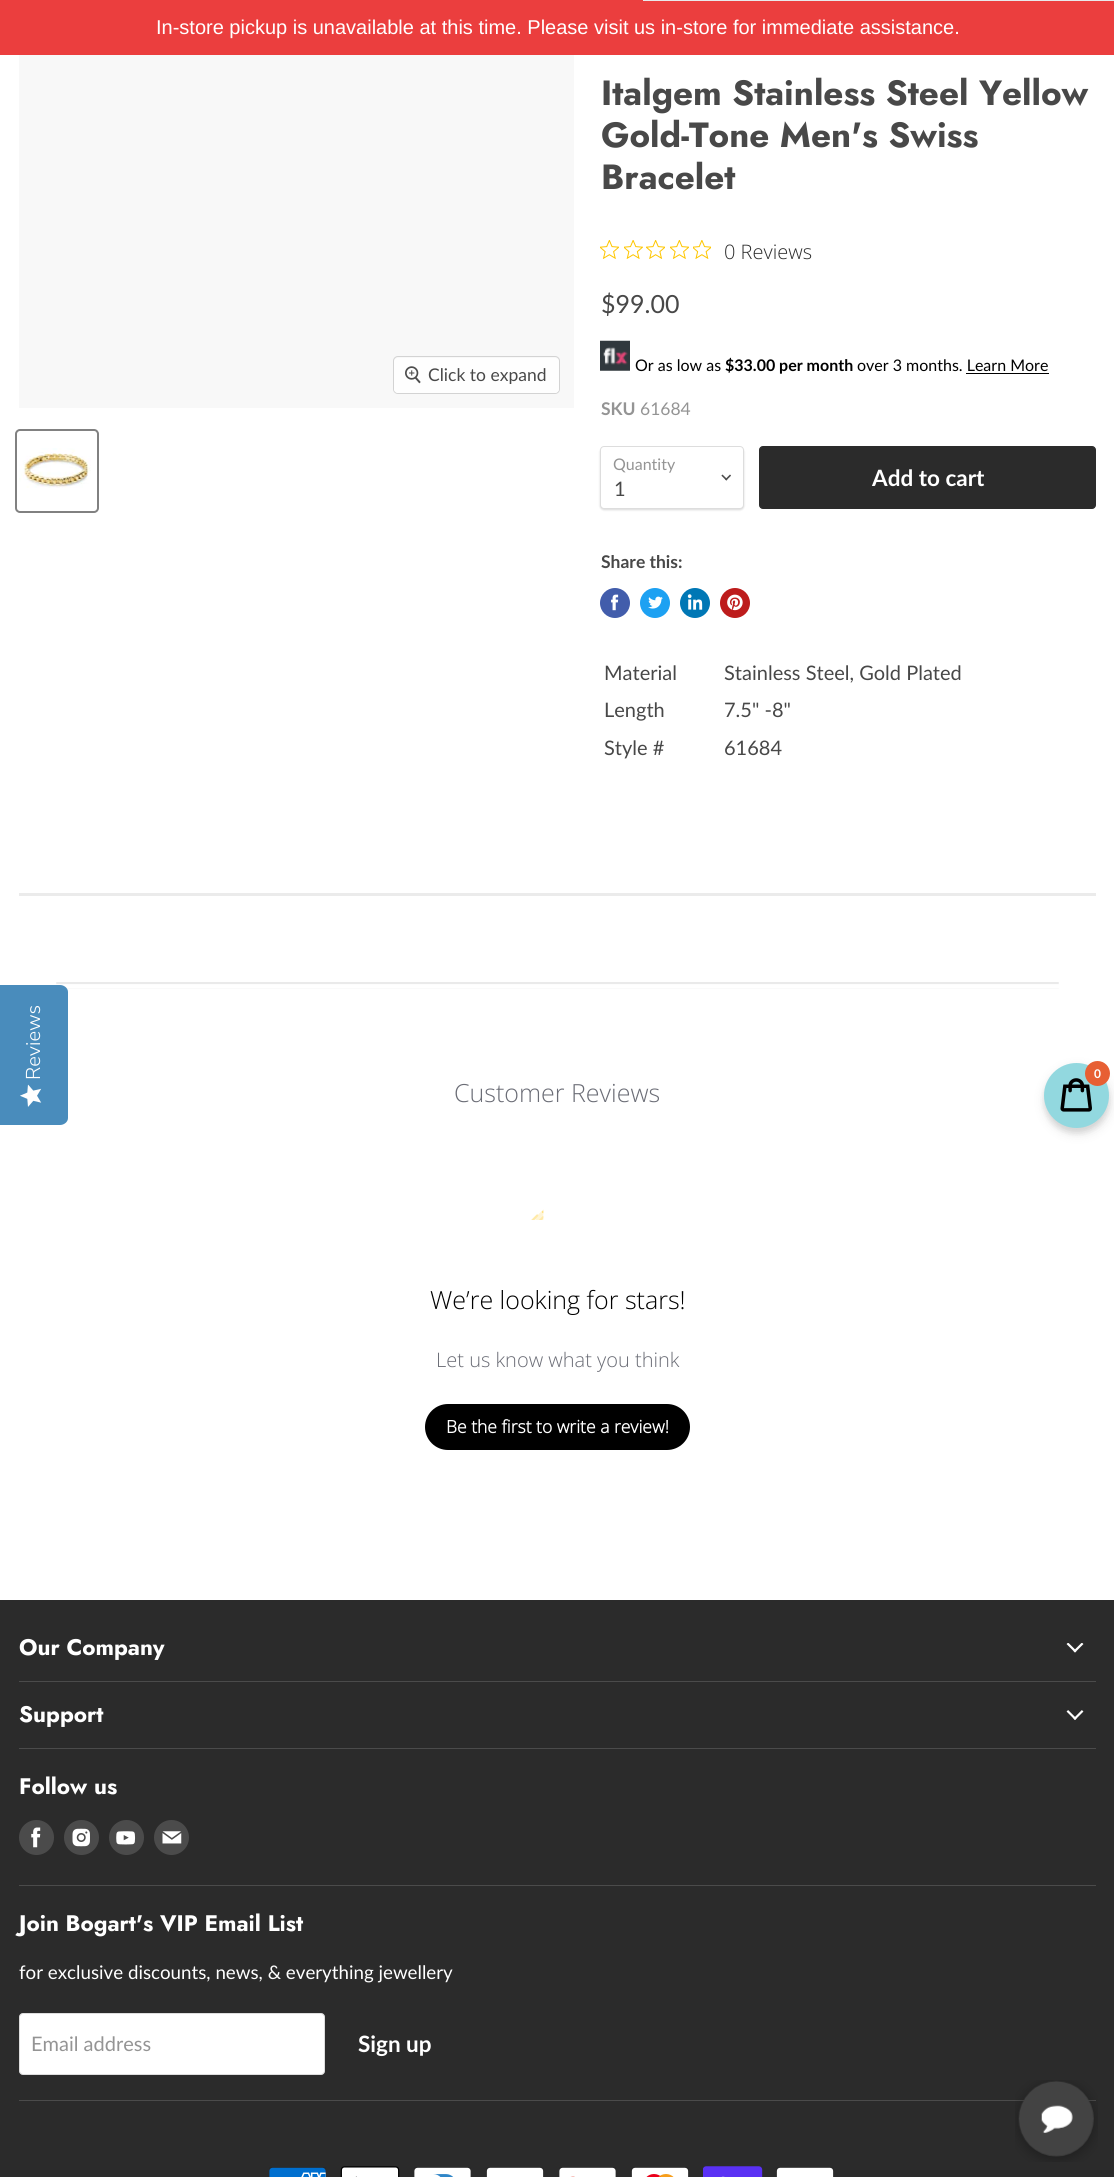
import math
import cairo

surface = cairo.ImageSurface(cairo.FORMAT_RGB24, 1114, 2177)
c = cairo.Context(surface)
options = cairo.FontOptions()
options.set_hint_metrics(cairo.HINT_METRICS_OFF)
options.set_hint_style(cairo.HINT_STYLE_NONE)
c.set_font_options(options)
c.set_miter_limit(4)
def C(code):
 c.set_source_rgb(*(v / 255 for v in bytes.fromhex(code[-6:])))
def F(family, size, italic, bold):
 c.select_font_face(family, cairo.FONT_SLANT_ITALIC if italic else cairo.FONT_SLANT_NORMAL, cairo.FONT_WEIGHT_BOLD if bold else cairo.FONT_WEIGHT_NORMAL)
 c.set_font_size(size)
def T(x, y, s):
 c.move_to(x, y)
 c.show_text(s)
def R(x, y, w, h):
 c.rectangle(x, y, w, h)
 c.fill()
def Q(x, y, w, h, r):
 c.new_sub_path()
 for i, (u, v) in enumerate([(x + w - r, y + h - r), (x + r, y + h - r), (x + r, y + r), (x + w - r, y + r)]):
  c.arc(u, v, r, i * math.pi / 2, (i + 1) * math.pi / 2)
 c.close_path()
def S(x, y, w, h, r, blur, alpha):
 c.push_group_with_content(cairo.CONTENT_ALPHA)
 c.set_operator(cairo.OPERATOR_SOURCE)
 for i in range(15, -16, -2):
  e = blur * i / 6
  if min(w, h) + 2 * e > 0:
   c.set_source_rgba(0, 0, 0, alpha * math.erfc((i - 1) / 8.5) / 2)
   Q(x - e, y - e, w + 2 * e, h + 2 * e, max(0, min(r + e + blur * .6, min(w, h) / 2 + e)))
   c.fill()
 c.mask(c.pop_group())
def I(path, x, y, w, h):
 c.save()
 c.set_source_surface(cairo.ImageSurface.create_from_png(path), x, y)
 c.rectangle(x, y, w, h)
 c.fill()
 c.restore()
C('ffffff')
c.paint()
C('eb3e3e')
R(0,0,1114,55)
C('e8e9eb')
R(643,0,471,1)
F('Liberation Sans',20,0,0)
C('ffffff')
T(156,34,'In-store pickup is unavailable at this time. Please visit us in-store for immediate assistance.')
I('14.png',56,982,1003,7)
C('498cbc')
c.new_path()
c.move_to(0,1125)
c.line_to(0,985)
c.line_to(60,985)
c.curve_to(64,985,68,988,68,992)
c.line_to(68,1118)
c.curve_to(68,1122,64,1125,60,1125)
c.close_path()
c.fill()
F('Nunito Sans Light',20,0,0)
C('ffffff')
c.save()
c.translate(40,1080)
c.rotate(-90 * math.pi / 180)
T(0,0,'Reviews')
c.restore()
I('1.png',20,1084,22,23)
C('f8f8f8')
R(19,55,555,353)
Q(393.5,356.5,166,37,4.5)
C('d3d3d3')
c.set_line_width(1)
c.stroke()
c.set_source_rgba(1,1,1,0.9)
Q(394,358,165,35,4)
c.fill()
I('2.png',405,366,16,18)
F('Lato',17.5,0,0)
C('484848')
T(428,381,'Click to expand')
Q(16,430,82,82,4)
C('818181')
c.set_line_width(2)
c.stroke()
I('3.png',19,448,72,40)
F('Jost',35,0,1)
C('484848')
T(601,105,'Italgem Stainless Steel Yellow')
T(601,147,'Gold-Tone Men\'s Swiss')
T(601,189,'Bracelet')
I('4.png',600,240,19,19)
I('5.png',624,240,19,19)
I('6.png',646,240,19,19)
I('4.png',670,240,19,19)
I('7.png',693,240,18,19)
F('Open Sans Light',20,0,0)
C('2c2c2c')
T(724,259,'0 Reviews')
F('Lato',25,0,0)
C('484848')
T(601,313,'$99.00')
I('8.png',600,340,30,31)
F('Lato',16,0,0)
C('000000')
T(635,371,'Or as low as')
F('Lato',16,0,1)
T(725,371,'$33.00 per month')
F('Lato',16,0,0)
T(857,371,'over 3 months. Learn More')
R(966,373,83,1)
F('Lato',17.5,0,1)
C('949494')
T(601,415,'SKU')
F('Lato',17.5,0,0)
T(640,415,'61684')
C('000000')
S(600,448,144,62,4,1,.15)
C('ffffff')
Q(600.5,446.5,143,62,3.5)
c.fill_preserve()
C('dddddd')
c.set_line_width(1)
c.stroke()
F('Lato',16,0,0)
C('949494')
T(613,470,'Quantity')
I('9.png',721,474,10,7)
F('Lato',20,0,0)
C('484848')
T(614,496,'1')
C('2b2b2b')
Q(759.5,446.5,336,62,3.5)
c.fill_preserve()
c.stroke()
F('Lato',22.5,0,1)
C('ffffff')
T(872,486,'Add to cart')
F('Lato',17.5,0,1)
C('484848')
T(601,568,'Share this:')
C('425dab')
c.new_path()
c.arc(615,603,15,0,2 * math.pi)
c.fill()
I('10.png',611,594,8,17)
C('1da1f2')
c.arc(655,603,15,0,2 * math.pi)
c.fill()
I('11.png',648,596,15,13)
C('0077b5')
c.arc(695,603,15,0,2 * math.pi)
c.fill()
I('12.png',687,594,16,16)
C('bd1c1c')
c.arc(735,603,15,0,2 * math.pi)
c.fill()
I('13.png',727,594,16,17)
F('Lato',20,0,0)
C('484848')
T(604,680,'Material')
T(724,680,'Stainless Steel, Gold Plated')
T(604,717,'Length')
T(724,717,'7.5" -8"')
T(604,755,'Style #')
T(724,755,'61684')
c.set_source_rgba(0.502,0.502,0.502,0.16)
R(19,893,1077,3)
F('Open Sans Light',25,0,0)
C('6b6d76')
T(454,1102,'Customer Reviews')
I('15.png',531,1209,13,11)
C('000000')
T(430,1309,'We’re looking for stars!')
F('Open Sans Light',20,0,0)
C('6b6d76')
T(436,1367,'Let us know what you think')
C('000000')
Q(425,1404,265,46,23)
c.fill()
F('Open Sans',17.5,0,1)
C('ffffff')
T(446,1433,'Be the first to write a review!')
C('000000')
S(1044,1068,65,65,32.5,2.5,.08)
S(1045,1068,65,65,32.5,6,.12)
C('92d8df')
c.arc(1076.5,1095.5,32.5,0,2 * math.pi)
c.fill()
I('16.png',1060,1078,32,34)
C('e75f33')
c.arc(1097.5,1073.5,12.5,0,2 * math.pi)
c.fill()
F('Lato',12,0,1)
C('ffffff')
T(1094,1078,'0')
C('2b2b2b')
R(0,1600,1114,577)
C('4b4b4b')
R(19,1681,1077,1)
F('Jost',22.5,0,1)
C('ffffff')
T(19,1655,'Our Company')
I('17.png',1066,1643,18,10)
C('4b4b4b')
R(19,1748,1077,1)
C('ffffff')
T(19,1722,'Support')
I('18.png',1066,1710,18,10)
C('4b4b4b')
R(19,1885,1077,1)
C('ffffff')
T(19,1794,'Follow us')
C('4b4b4b')
c.new_path()
c.arc(36.5,1837.5,17.5,0,2 * math.pi)
c.fill()
I('19.png',31,1827,10,21)
c.arc(81.5,1837.5,17.5,0,2 * math.pi)
c.fill()
I('20.png',72,1828,18,19)
c.arc(126.5,1837.5,17.5,0,2 * math.pi)
c.fill()
I('21.png',116,1831,20,14)
c.arc(171.5,1837.5,17.5,0,2 * math.pi)
c.fill()
I('22.png',162,1831,20,13)
R(19,2100,1077,1)
C('ffffff')
T(19,1931,'Join Bogart\'s VIP Email List')
F('Lato',18.75,0,0)
T(19,1979,'for exclusive discounts, news, & everything jewellery')
Q(19.5,2013.5,305,61,3.5)
c.fill_preserve()
C('dddddd')
c.stroke()
F('Lato',20,0,0)
C('949494')
T(31,2051,'Email address')
F('Lato',22.5,0,1)
C('ffffff')
T(358,2052,'Sign up')
I('23.png',269,2167,57,10)
I('24.png',340,2166,60,11)
I('25.png',414,2167,57,10)
I('26.png',486,2167,58,10)
I('27.png',559,2167,57,10)
I('28.png',631,2167,58,10)
I('29.png',703,2166,60,11)
I('26.png',776,2167,58,10)
I('30.png',1015,2080,83,82)
surface.write_to_png('o.png')
